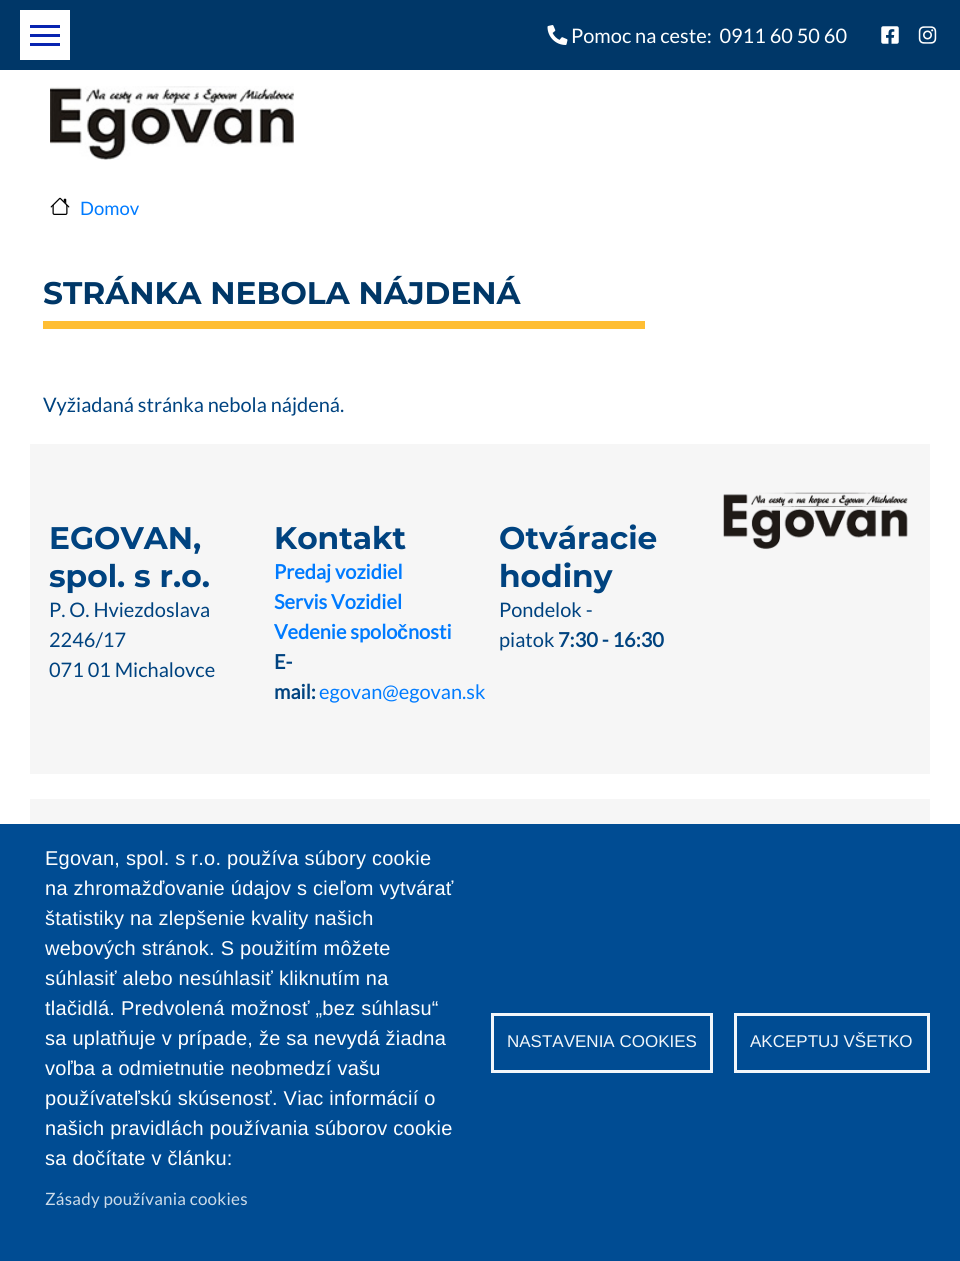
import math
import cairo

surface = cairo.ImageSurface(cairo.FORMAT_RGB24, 960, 1261)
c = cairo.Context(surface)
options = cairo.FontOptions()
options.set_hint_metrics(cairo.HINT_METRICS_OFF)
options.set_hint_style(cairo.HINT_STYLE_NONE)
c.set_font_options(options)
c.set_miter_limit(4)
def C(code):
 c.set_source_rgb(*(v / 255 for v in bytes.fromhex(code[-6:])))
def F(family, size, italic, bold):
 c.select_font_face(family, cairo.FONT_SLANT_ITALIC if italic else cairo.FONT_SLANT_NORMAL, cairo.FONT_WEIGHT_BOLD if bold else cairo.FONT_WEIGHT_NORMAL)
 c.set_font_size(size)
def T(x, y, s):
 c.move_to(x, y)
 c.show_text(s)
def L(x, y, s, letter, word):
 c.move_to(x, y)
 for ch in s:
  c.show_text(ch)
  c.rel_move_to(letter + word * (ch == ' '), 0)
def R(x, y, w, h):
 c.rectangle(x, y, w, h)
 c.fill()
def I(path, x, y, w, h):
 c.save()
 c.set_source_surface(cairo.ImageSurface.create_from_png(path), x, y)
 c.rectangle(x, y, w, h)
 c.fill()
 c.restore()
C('ffffff')
c.paint()
C('003768')
R(0,0,960,70)
C('ffffff')
R(20,10,50,50)
C('0723b0')
R(30,25,30,3)
R(30,34,30,3)
R(30,43,30,3)
I('1.png',547,25,21,20)
F('Lato',20,0,0)
C('ffffff')
T(571,43,'Pomoc na ceste:  0911 60 50 60')
I('2.png',881,26,18,18)
I('3.png',918,26,19,18)
I('4.png',50,86,244,74)
I('5.png',50,197,20,18)
F('Lato',18.5,0,0)
C('007bff')
T(80,215,'Domov')
F('Montserrat',31.25,0,1)
C('003767')
T(43,304,'STRÁNKA NEBOLA NÁJDENÁ')
C('ffbe33')
R(43,321,602,8)
F('Lato',20,0,0)
C('004380')
T(43,412,'Vyžiadaná stránka nebola nájdená.')
C('f6f6f6')
R(30,444,900,330)
F('Montserrat',31.25,0,1)
C('004380')
T(49,549,'EGOVAN,')
T(49,587,'spol. s r.o.')
F('Lato',20,0,0)
T(49,617,'P. O. Hviezdoslava')
T(49,647,'2246/17')
T(49,677,'071 01 Michalovce')
F('Montserrat',31.25,0,1)
T(274,549,'Kontakt')
F('Lato',20,0,1)
C('007bff')
T(274,579,'Predaj vozidiel')
T(274,609,'Servis Vozidiel')
T(274,639,'Vedenie spolo')
F('Liberation Sans',20,0,1)
T(397,639,'č')
F('Lato',20,0,1)
T(408,639,'nosti')
C('004380')
T(274,669,'E-')
T(274,699,'mail:')
F('Lato',20,0,0)
C('007bff')
T(319,699,'egovan@egovan.sk')
F('Montserrat',31.25,0,1)
C('004380')
T(499,549,'Otváracie')
T(499,587,'hodiny')
F('Lato',20,0,0)
T(499,617,'Pondelok -')
T(499,647,'piatok')
F('Lato',20,0,1)
T(558,647,'7:30 - 16:30')
I('6.png',723,492,185,58)
C('f6f6f6')
R(30,799,900,25)
C('004c93')
R(0,824,960,437)
F('Liberation Sans',20,0,0)
C('ffffff')
L(45,865,'Egovan, spol. s r.o. používa súbory cookie',.25,0)
L(45,895,'na zhromažďovanie údajov s cieľom vytvárať',.25,0)
L(45,925,'štatistiky na zlepšenie kvality našich',.25,0)
L(45,955,'webových stránok. S použitím môžete',.25,0)
L(45,985,'súhlasiť alebo nesúhlasiť kliknutím na',.25,0)
L(45,1015,'tlačidlá. Predvolená možnosť „bez súhlasu“',.25,0)
L(45,1045,'sa uplatňuje v prípade, že sa nevydá žiadna',.25,0)
L(45,1075,'voľba a odmietnutie neobmedzí vašu',.25,0)
L(45,1105,'používateľskú skúsenosť. Viac informácií o',.25,0)
L(45,1135,'našich pravidlách používania súborov cookie',.25,0)
L(45,1165,'sa dočítate v článku:',.25,0)
F('Lato',17,0,0)
C('ccdbe9')
L(45,1205,'Zásady používania cookies',.25,0)
c.rectangle(492.5,1014.5,219,57)
C('f2f6fa')
c.set_line_width(3)
c.stroke()
F('Liberation Sans',17,0,0)
T(507,1047,'NASTAVENIA COOKIES')
c.rectangle(735.5,1014.5,193,57)
c.stroke()
T(750,1047,'AKCEPTUJ VŠETKO')
surface.write_to_png('o.png')
